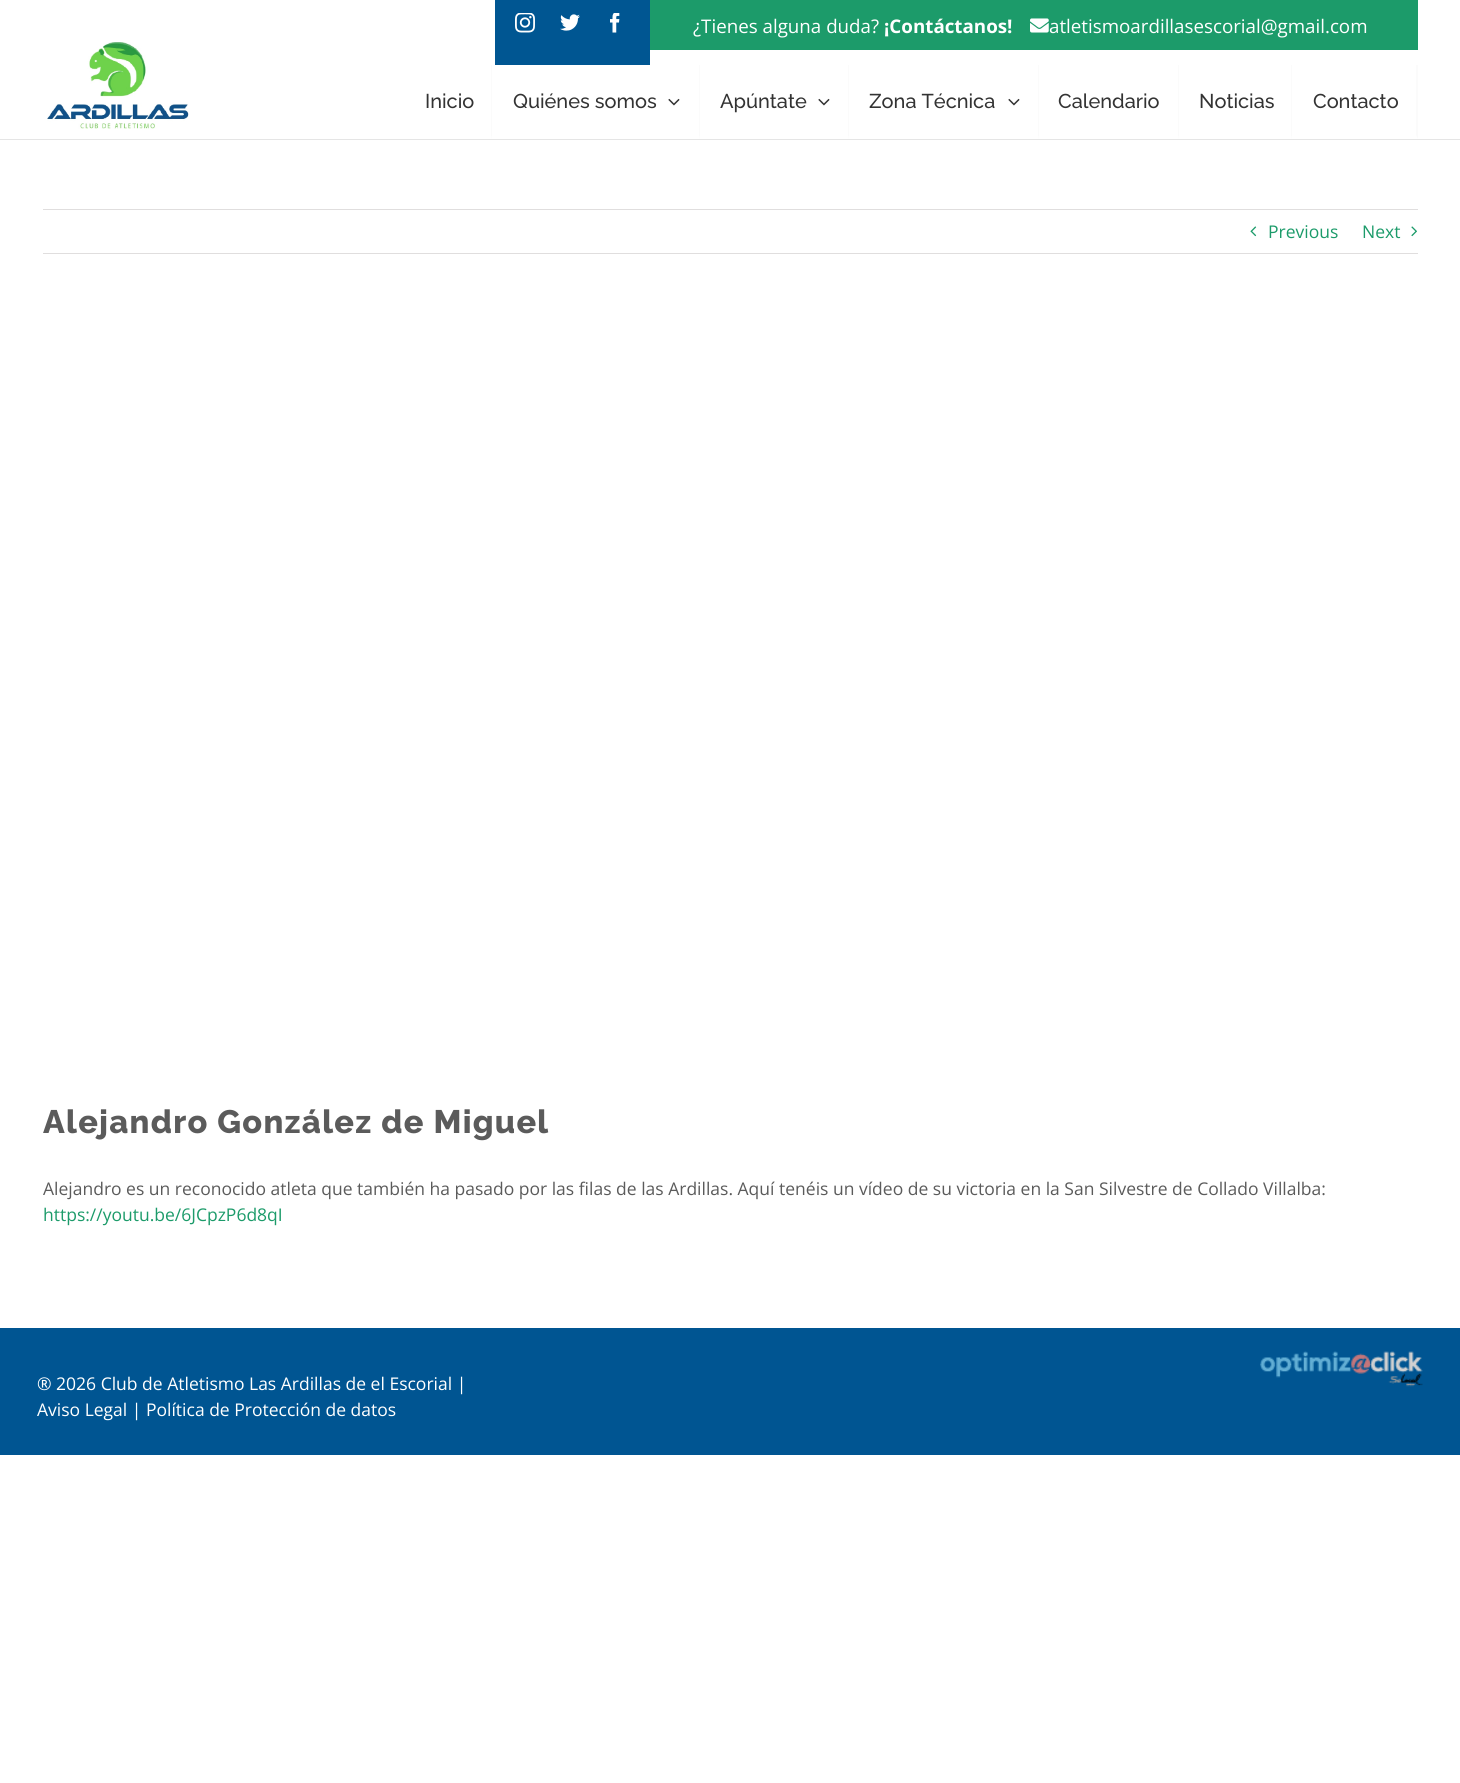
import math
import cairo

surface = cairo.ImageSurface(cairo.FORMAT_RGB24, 1460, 1783)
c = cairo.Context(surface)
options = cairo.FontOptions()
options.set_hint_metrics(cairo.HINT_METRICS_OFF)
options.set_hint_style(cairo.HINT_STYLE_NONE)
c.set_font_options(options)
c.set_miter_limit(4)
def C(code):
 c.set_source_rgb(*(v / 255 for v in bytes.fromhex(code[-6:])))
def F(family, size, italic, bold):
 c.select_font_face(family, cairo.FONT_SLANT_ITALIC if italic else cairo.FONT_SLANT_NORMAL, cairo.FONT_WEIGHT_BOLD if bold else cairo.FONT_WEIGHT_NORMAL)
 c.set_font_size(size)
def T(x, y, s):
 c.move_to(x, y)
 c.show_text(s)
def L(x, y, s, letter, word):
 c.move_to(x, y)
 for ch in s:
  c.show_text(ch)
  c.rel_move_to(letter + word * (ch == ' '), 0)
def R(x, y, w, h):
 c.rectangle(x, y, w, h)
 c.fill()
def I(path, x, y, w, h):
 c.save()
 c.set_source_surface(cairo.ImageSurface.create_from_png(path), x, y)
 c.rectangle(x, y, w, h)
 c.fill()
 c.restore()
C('ffffff')
c.paint()
C('005692')
R(495,0,155,65)
I('1.png',515,13,20,20)
I('2.png',560,14,20,17)
I('3.png',610,13,10,20)
C('1c9b6a')
R(650,0,768,50)
F('Open Sans',18.75,0,0)
C('ffffff')
T(693,33,'¿Tienes alguna duda?')
F('Open Sans',18.75,0,1)
T(884,33,'¡Contáctanos!')
I('4.png',1030,18,19,15)
F('Open Sans',18.75,0,0)
T(1049,33,'atletismoardillasescorial@gmail.com')
C('e5e5e5')
R(0,139,1460,1)
I('5.png',47,42,142,87)
C('fbfbfb')
c.new_path()
c.move_to(492,65)
c.line_to(492,139)
c.line_to(491,135)
c.line_to(491,65)
c.close_path()
c.fill()
F('Raleway Medium',20,0,0)
C('333333')
T(425,108,'Inicio')
C('fbfbfb')
c.new_path()
c.move_to(700,65)
c.line_to(700,139)
c.line_to(699,135)
c.line_to(699,65)
c.close_path()
c.fill()
C('333333')
T(513,108,'Quiénes somos')
I('6.png',668,98,12,8)
C('fbfbfb')
c.new_path()
c.move_to(849,65)
c.line_to(849,139)
c.line_to(848,135)
c.line_to(848,65)
c.close_path()
c.fill()
C('333333')
T(720,108,'Apúntate')
I('6.png',818,98,12,8)
C('fbfbfb')
c.new_path()
c.move_to(1039,65)
c.line_to(1039,139)
c.line_to(1038,135)
c.line_to(1038,65)
c.close_path()
c.fill()
C('333333')
T(869,108,'Zona Técnica')
I('6.png',1008,98,12,8)
C('fbfbfb')
c.new_path()
c.move_to(1179,65)
c.line_to(1179,139)
c.line_to(1178,135)
c.line_to(1178,65)
c.close_path()
c.fill()
C('333333')
T(1058,108,'Calendario')
C('fbfbfb')
c.new_path()
c.move_to(1292,65)
c.line_to(1292,139)
c.line_to(1291,135)
c.line_to(1291,65)
c.close_path()
c.fill()
C('333333')
T(1199,108,'Noticias')
C('fbfbfb')
c.new_path()
c.move_to(1418,65)
c.line_to(1418,139)
c.line_to(1416,135)
c.line_to(1416,65)
c.close_path()
c.fill()
C('333333')
T(1313,108,'Contacto')
C('e0dede')
R(43,209,1375,1)
R(43,253,1375,1)
I('7.png',1250,226,7,11)
F('Open Sans',17.5,0,0)
C('1c9b6a')
T(1268,238,'Previous')
T(1362,238,'Next')
I('8.png',1411,226,6,11)
F('Raleway ExtraBold',32.5,0,0)
C('5b5b5b')
L(43,1133,'Alejandro González de Miguel',1.25,0)
F('Open Sans',17.5,0,0)
T(43,1195,'Alejandro es un reconocido atleta que también ha pasado por las filas de las Ardillas. Aquí tenéis un vídeo de su victoria en la San Silvestre de Collado Villalba:')
C('1c9b6a')
T(43,1221,'https://youtu.be/6JCpzP6d8qI')
C('005592')
R(0,1328,1460,127)
I('9.png',1260,1351,163,36)
C('ffffff')
T(37,1390,'® 2026 Club de Atletismo Las Ardillas de el Escorial |')
T(37,1416,'Aviso Legal | Política de Protección de datos')
surface.write_to_png('o.png')
